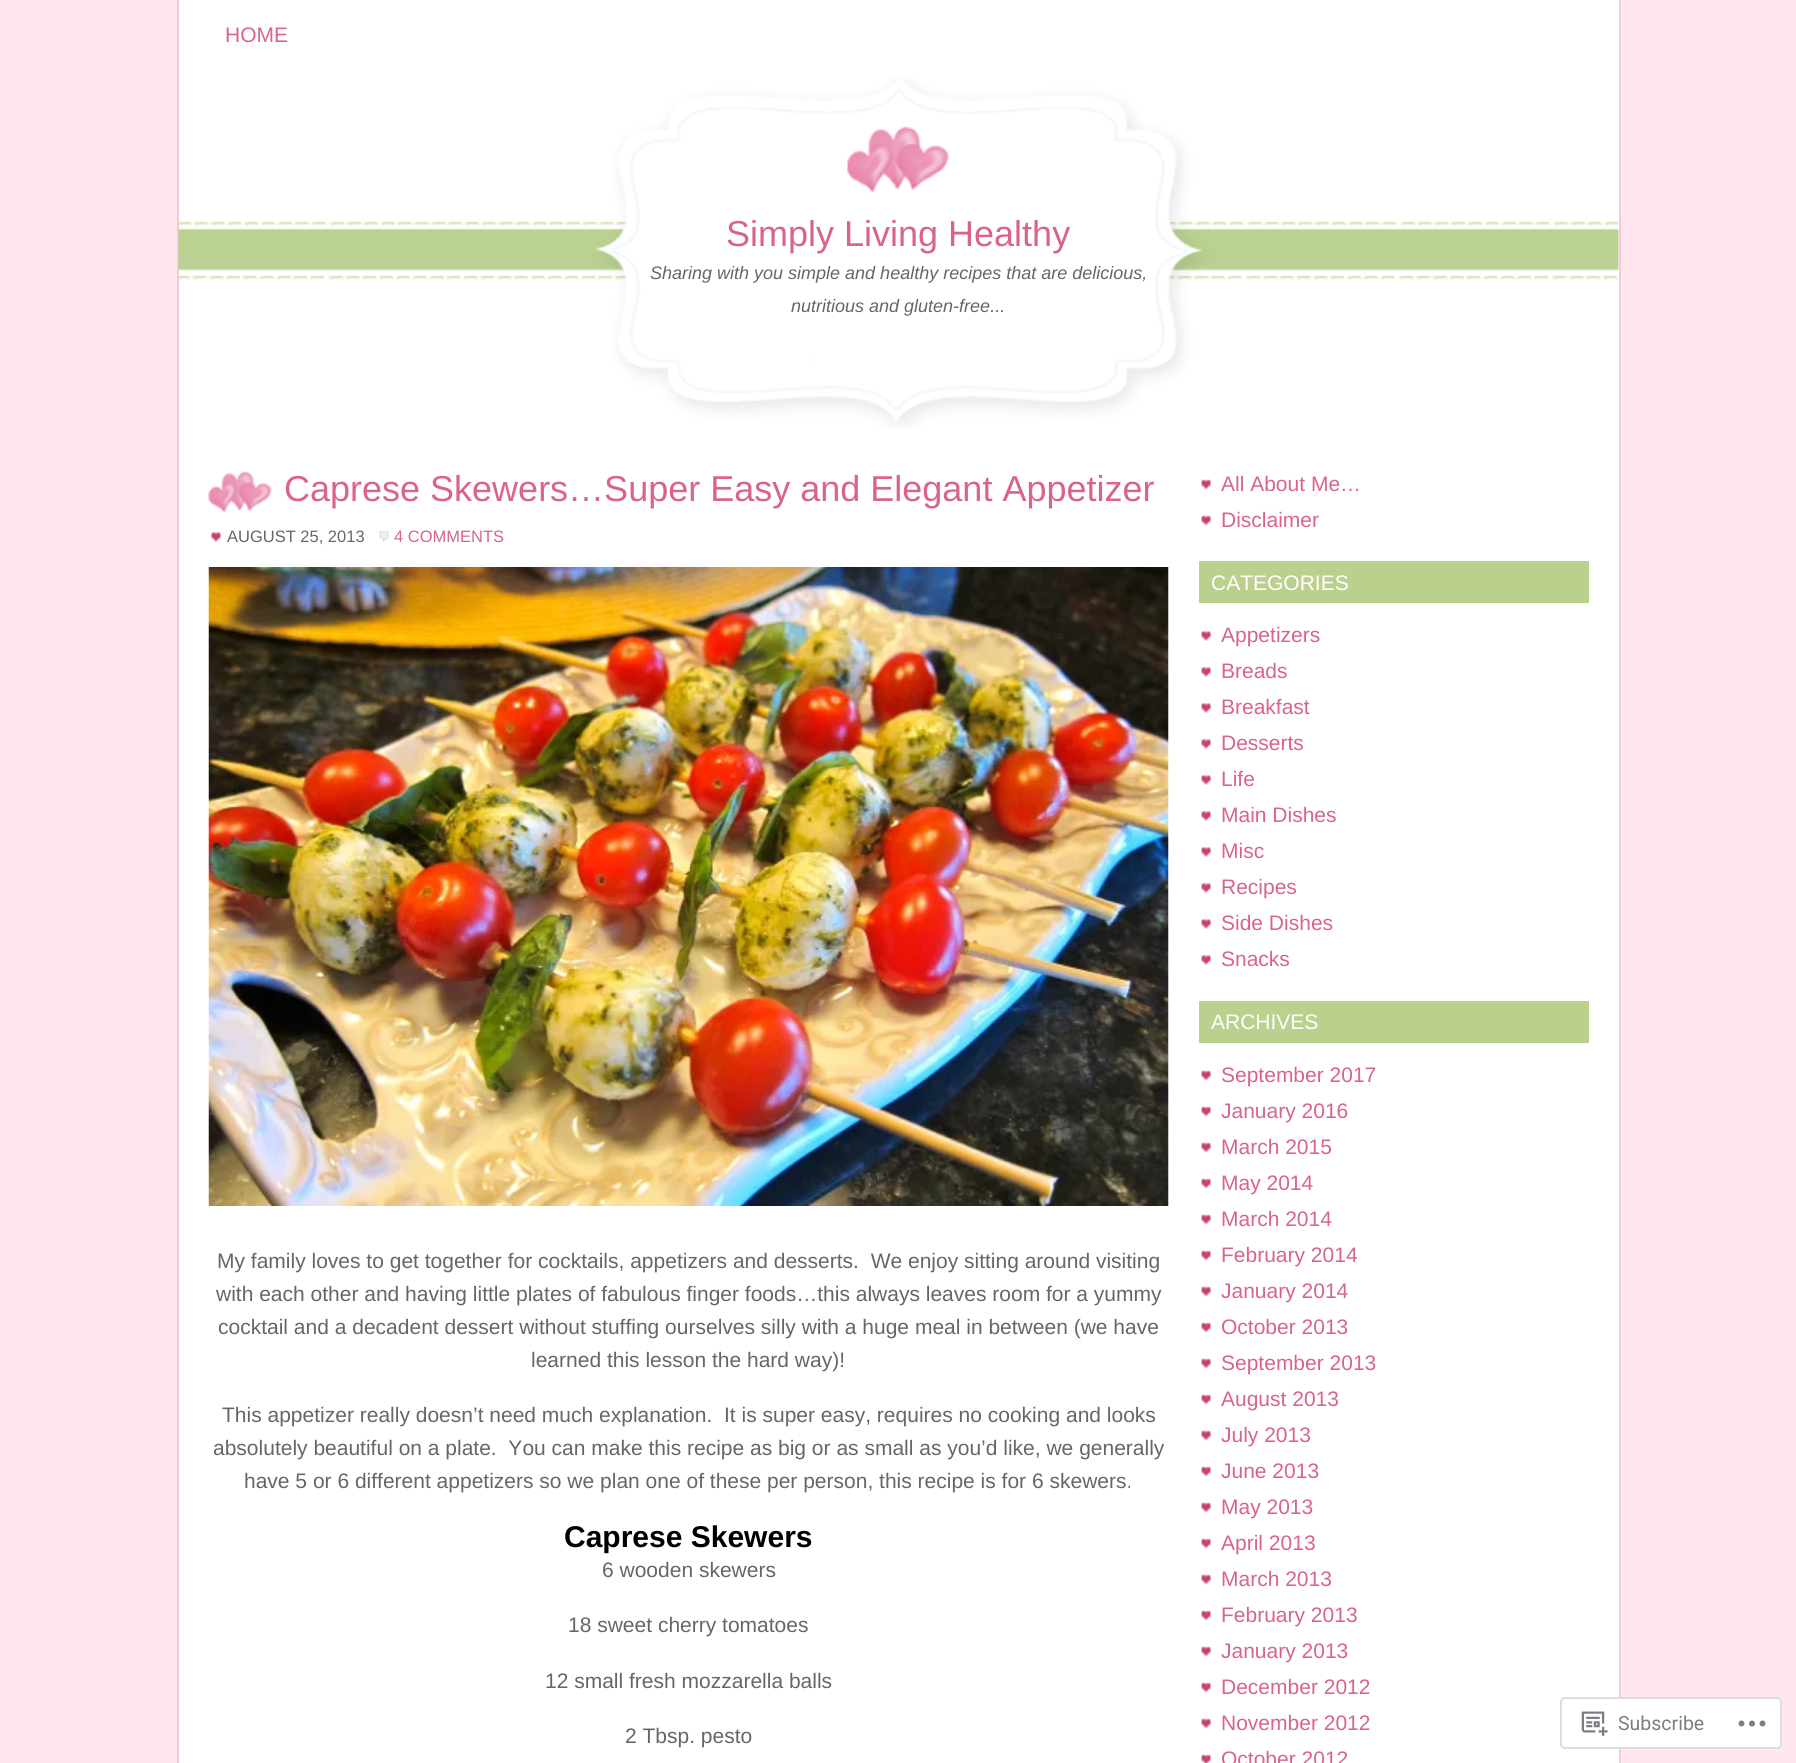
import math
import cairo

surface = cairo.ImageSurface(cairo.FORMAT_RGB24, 1796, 1763)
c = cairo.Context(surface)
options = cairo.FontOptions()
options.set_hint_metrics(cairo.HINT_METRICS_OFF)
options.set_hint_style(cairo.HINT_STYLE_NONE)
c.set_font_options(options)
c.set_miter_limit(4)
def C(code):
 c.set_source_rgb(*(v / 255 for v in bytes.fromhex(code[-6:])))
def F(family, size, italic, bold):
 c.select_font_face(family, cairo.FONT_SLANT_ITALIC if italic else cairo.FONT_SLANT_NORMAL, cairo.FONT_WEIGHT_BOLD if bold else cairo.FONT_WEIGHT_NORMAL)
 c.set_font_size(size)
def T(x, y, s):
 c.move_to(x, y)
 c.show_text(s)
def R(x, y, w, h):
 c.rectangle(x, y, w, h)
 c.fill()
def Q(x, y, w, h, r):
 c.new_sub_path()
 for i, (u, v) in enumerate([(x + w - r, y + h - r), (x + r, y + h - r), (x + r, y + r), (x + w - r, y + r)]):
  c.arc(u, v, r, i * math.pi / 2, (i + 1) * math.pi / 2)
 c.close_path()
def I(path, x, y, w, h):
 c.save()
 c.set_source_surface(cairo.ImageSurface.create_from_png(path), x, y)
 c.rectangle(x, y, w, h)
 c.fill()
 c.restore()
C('ffe6ef')
c.paint()
C('ffffff')
R(179,0,1440,1763)
C('f7c8d9')
R(1619,0,2,1763)
R(177,0,2,1763)
F('Liberation Sans',21,0,0)
C('d9638e')
T(225,42,'HOME')
I('1.png',178,77,1441,351)
F('Liberation Sans',36,0,0)
T(726,246,'Simply Living Healthy')
F('Liberation Sans',18,1,0)
C('666666')
T(650,279,'Sharing with you simple and healthy recipes that are delicious,')
T(791,312,'nutritious and gluten-free...')
I('2.png',208,471,64,41)
F('Liberation Sans',36,0,0)
C('d9638e')
T(284,501,'Caprese Skewers…Super Easy and Elegant Appetizer')
I('3.png',211,532,10,10)
F('Liberation Sans',16.5,0,0)
C('666666')
T(227,542,'AUGUST 25, 2013')
I('4.png',379,530,10,12)
C('d9638e')
T(394,542,'4 COMMENTS')
I('5.png',208,567,961,639)
F('Liberation Sans',21,0,0)
C('666666')
T(217,1268,'My family loves to get together for cocktails, appetizers and desserts.  We enjoy sitting around visiting')
T(216,1301,'with each other and having little plates of fabulous finger foods…this always leaves room for a yummy')
T(218,1334,'cocktail and a decadent dessert without stuffing ourselves silly with a huge meal in between (we have')
T(531,1367,'learned this lesson the hard way)!')
T(222,1422,'This appetizer really doesn’t need much explanation.  It is super easy, requires no cooking and looks')
T(213,1455,'absolutely beautiful on a plate.  You can make this recipe as big or as small as you’d like, we generally')
T(244,1488,'have 5 or 6 different appetizers so we plan one of these per person, this recipe is for 6 skewers.')
F('Liberation Sans',30,0,1)
C('000000')
T(564,1547,'Caprese Skewers')
F('Liberation Sans',21,0,0)
C('666666')
T(602,1577,'6 wooden skewers')
T(568,1632,'18 sweet cherry tomatoes')
T(545,1688,'12 small fresh mozzarella balls')
T(625,1743,'2 Tbsp. pesto')
I('6.png',1201,479,10,11)
C('d9638e')
T(1221,491,'All About Me…')
I('6.png',1201,515,10,11)
T(1221,527,'Disclaimer')
C('bcd08e')
R(1199,561,390,42)
C('ffffff')
T(1211,590,'CATEGORIES')
I('7.png',1201,631,10,10)
C('d9638e')
T(1221,642,'Appetizers')
I('7.png',1201,667,10,10)
T(1221,678,'Breads')
I('7.png',1201,703,10,10)
T(1221,714,'Breakfast')
I('7.png',1201,739,10,10)
T(1221,750,'Desserts')
I('7.png',1201,775,10,10)
T(1221,786,'Life')
I('7.png',1201,811,10,10)
T(1221,822,'Main Dishes')
I('7.png',1201,847,10,10)
T(1221,858,'Misc')
I('7.png',1201,883,10,10)
T(1221,894,'Recipes')
I('7.png',1201,919,10,10)
T(1221,930,'Side Dishes')
I('7.png',1201,955,10,10)
T(1221,966,'Snacks')
C('bcd08e')
R(1199,1001,390,42)
C('ffffff')
T(1211,1029,'ARCHIVES')
I('6.png',1201,1070,10,11)
C('d9638e')
T(1221,1082,'September 2017')
I('6.png',1201,1106,10,11)
T(1221,1118,'January 2016')
I('6.png',1201,1142,10,11)
T(1221,1154,'March 2015')
I('6.png',1201,1178,10,11)
T(1221,1190,'May 2014')
I('6.png',1201,1214,10,11)
T(1221,1226,'March 2014')
I('6.png',1201,1250,10,11)
T(1221,1262,'February 2014')
I('6.png',1201,1286,10,11)
T(1221,1298,'January 2014')
I('6.png',1201,1322,10,11)
T(1221,1334,'October 2013')
I('6.png',1201,1358,10,11)
T(1221,1370,'September 2013')
I('6.png',1201,1394,10,11)
T(1221,1406,'August 2013')
I('6.png',1201,1430,10,11)
T(1221,1442,'July 2013')
I('6.png',1201,1466,10,11)
T(1221,1478,'June 2013')
I('6.png',1201,1502,10,11)
T(1221,1514,'May 2013')
I('6.png',1201,1538,10,11)
T(1221,1550,'April 2013')
I('6.png',1201,1574,10,11)
T(1221,1586,'March 2013')
I('6.png',1201,1610,10,11)
T(1221,1622,'February 2013')
I('6.png',1201,1646,10,11)
T(1221,1658,'January 2013')
I('6.png',1201,1682,10,11)
T(1221,1694,'December 2012')
I('6.png',1201,1718,10,11)
T(1221,1730,'November 2012')
I('8.png',1201,1754,10,9)
T(1221,1766,'October 2012')
c.set_source_rgba(1,1,1,0.98)
Q(1560,1697,222,52,5)
c.fill()
Q(1561,1698,220,50,4)
c.set_source_rgba(0.863,0.863,0.871,0.98)
c.stroke()
I('9.png',1581,1711,27,25)
F('Roboto',19.5,0,0)
C('7b7f84')
T(1618,1730,'Subscribe')
I('10.png',1738,1720,28,7)
surface.write_to_png('o.png')
